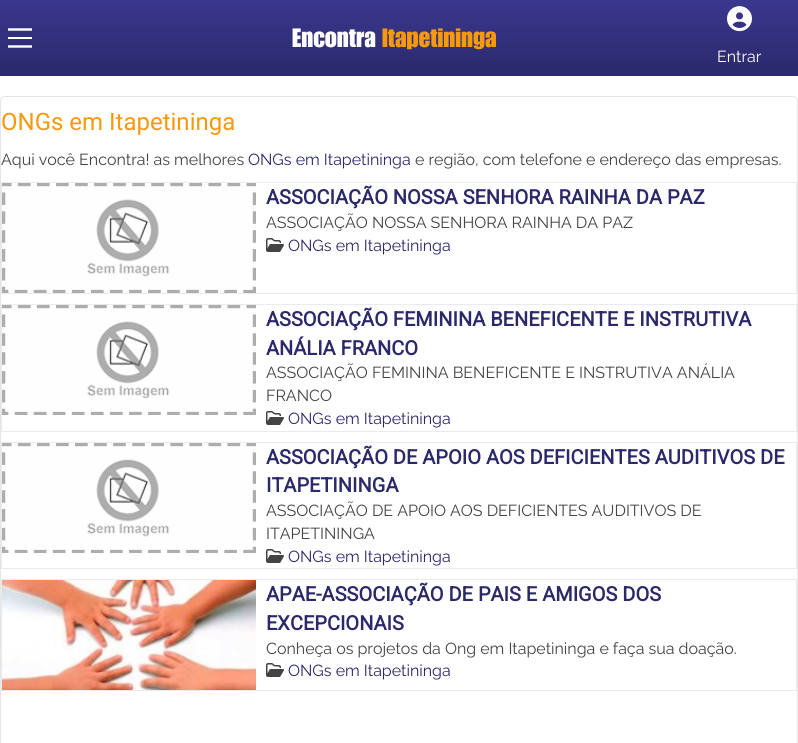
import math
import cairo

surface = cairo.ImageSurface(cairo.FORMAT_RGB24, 798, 743)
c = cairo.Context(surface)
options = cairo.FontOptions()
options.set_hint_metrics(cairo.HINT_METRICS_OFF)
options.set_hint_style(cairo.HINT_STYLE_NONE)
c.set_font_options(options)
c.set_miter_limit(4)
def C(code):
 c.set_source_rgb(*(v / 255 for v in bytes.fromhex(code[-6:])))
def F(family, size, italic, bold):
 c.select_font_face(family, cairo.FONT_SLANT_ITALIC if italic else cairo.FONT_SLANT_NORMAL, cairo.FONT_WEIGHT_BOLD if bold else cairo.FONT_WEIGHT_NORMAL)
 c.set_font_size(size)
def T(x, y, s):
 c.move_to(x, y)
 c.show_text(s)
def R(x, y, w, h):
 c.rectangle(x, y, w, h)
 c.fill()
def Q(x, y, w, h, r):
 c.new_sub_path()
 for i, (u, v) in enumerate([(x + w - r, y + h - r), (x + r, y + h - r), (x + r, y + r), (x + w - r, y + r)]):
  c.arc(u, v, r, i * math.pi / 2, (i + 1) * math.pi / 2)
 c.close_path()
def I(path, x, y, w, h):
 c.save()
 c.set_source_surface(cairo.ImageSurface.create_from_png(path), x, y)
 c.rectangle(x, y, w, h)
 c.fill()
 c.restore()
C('ffffff')
c.paint()
gradient = cairo.LinearGradient(399,0,399,76)
gradient.add_color_stop_rgba(0,0.227,0.216,0.561,1)
gradient.add_color_stop_rgba(1,0.169,0.161,0.416,1)
c.set_source(gradient)
R(0,0,798,76)
c.new_path()
c.move_to(8,29.5)
c.line_to(32,29.5)
C('fefefe')
c.set_line_width(2.4)
c.stroke()
R(8,37,24,2)
c.new_path()
c.move_to(8,46.5)
c.line_to(32,46.5)
c.stroke()
F('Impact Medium',26,0,0)
T(292,47,'Encontra')
C('f6990d')
T(382,47,'Itapetininga')
I('1.png',727,6,25,26)
F('Raleway',16,0,0)
C('fefefe')
T(717,62,'Entrar')
Q(.5,96.5,797,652,4.5)
C('e6e6e6')
c.set_line_width(1)
c.stroke()
F('Roboto',24,0,0)
C('f6990d')
T(1,130,'ONGs em Itapetininga')
F('Raleway',16,0,0)
C('444444')
T(1,165,'Aqui você Encontra! as melhores')
C('2b296a')
T(248,165,'ONGs em Itapetininga')
C('444444')
T(415,165,'e região, com telefone e endereço das empresas.')
c.rectangle(1.5,182.5,795,111)
C('eaeaf0')
c.stroke()
I('2.png',2,183,254,110)
F('Roboto',20,0,1)
C('2b296a')
T(266,204,'ASSOCIAÇÃO NOSSA SENHORA RAINHA DA PAZ')
F('Raleway',16,0,0)
C('444444')
T(266,228,'ASSOCIAÇÃO NOSSA SENHORA RAINHA DA PAZ')
I('3.png',266,238,18,14)
C('2b296a')
T(288,251,'ONGs em Itapetininga')
c.rectangle(1.5,304.5,795,127)
C('eaeaf0')
c.stroke()
I('4.png',2,305,254,110)
F('Roboto',20,0,1)
C('2b296a')
T(266,326,'ASSOCIAÇÃO FEMININA BENEFICENTE E INSTRUTIVA')
T(266,355,'ANÁLIA FRANCO')
F('Raleway',16,0,0)
C('444444')
T(266,378,'ASSOCIAÇÃO FEMININA BENEFICENTE E INSTRUTIVA ANÁLIA')
T(266,401,'FRANCO')
I('3.png',266,411,18,14)
C('2b296a')
T(288,424,'ONGs em Itapetininga')
c.rectangle(1.5,442.5,795,126)
C('eaeaf0')
c.stroke()
I('5.png',2,443,254,110)
F('Roboto',20,0,1)
C('2b296a')
T(266,464,'ASSOCIAÇÃO DE APOIO AOS DEFICIENTES AUDITIVOS DE')
T(266,492,'ITAPETININGA')
F('Raleway',16,0,0)
C('444444')
T(266,516,'ASSOCIAÇÃO DE APOIO AOS DEFICIENTES AUDITIVOS DE')
T(266,539,'ITAPETININGA')
I('3.png',266,549,18,14)
C('2b296a')
T(288,562,'ONGs em Itapetininga')
c.rectangle(1.5,579.5,795,111)
C('eaeaf0')
c.stroke()
I('6.png',2,580,254,110)
F('Roboto',20,0,1)
C('2b296a')
T(266,601,'APAE-ASSOCIAÇÃO DE PAIS E AMIGOS DOS')
T(266,630,'EXCEPCIONAIS')
F('Raleway',16,0,0)
C('444444')
T(266,654,'Conheça os projetos da Ong em Itapetininga e faça sua doação.')
I('3.png',266,663,18,14)
C('2b296a')
T(288,676,'ONGs em Itapetininga')
surface.write_to_png('o.png')
